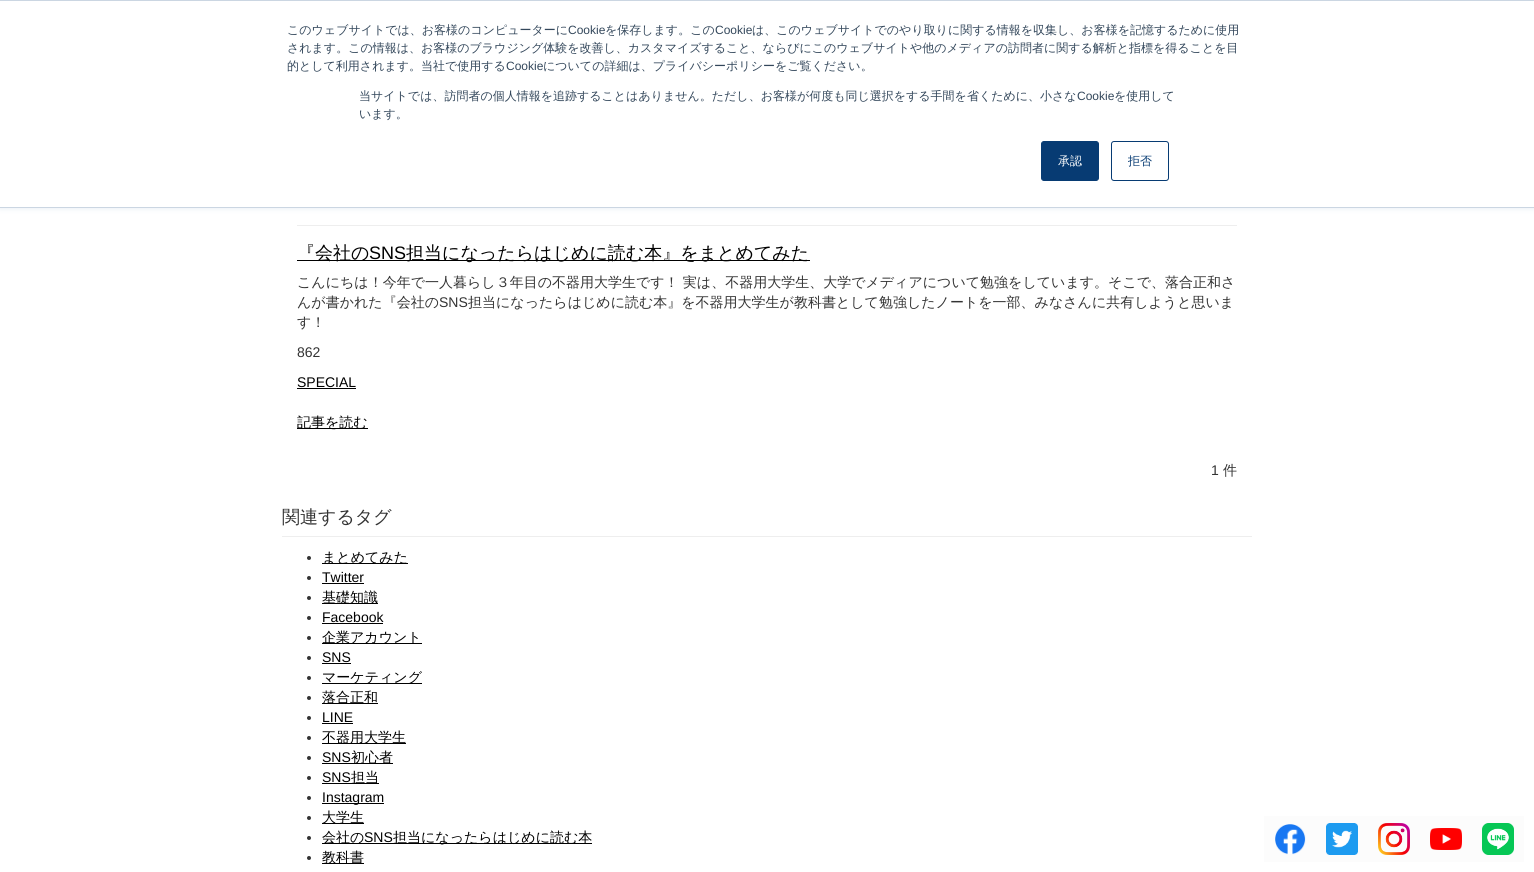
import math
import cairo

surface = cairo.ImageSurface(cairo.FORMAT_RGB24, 1534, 872)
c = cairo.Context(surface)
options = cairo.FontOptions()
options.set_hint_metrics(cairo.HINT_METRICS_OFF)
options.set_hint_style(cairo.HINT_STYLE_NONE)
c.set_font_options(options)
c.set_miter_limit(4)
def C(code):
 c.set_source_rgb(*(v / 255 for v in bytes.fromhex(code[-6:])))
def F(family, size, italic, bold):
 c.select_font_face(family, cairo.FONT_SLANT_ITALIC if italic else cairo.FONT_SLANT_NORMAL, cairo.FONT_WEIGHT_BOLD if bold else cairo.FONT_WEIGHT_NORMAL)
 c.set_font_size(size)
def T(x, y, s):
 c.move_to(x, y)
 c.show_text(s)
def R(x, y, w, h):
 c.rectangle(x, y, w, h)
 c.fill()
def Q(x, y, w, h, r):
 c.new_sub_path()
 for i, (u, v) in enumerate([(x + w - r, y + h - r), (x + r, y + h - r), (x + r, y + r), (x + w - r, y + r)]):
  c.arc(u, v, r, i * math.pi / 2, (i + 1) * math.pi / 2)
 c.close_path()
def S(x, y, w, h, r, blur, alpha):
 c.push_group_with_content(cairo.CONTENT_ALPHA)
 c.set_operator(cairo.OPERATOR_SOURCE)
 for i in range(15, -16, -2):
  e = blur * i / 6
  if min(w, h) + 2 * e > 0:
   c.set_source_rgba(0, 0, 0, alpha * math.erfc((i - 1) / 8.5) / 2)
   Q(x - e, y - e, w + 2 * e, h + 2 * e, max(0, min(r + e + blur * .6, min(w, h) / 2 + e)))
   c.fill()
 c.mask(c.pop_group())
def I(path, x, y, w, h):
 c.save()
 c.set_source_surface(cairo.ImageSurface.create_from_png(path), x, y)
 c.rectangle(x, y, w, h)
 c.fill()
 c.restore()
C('ffffff')
c.paint()
C('eaf0f6')
S(0,1,1534,208,0,2.5,1)
C('ffffff')
R(0,1,1534,206)
C('cbd6e2')
R(0,0,1534,1)
R(0,207,1534,1)
F('WenQuanYi Zen Hei Medium',12,0,0)
C('33475b')
T(287,34,'このウェブサイトでは、お客様のコンピューターに')
F('Liberation Sans',12,0,0)
T(568,34,'Cookie')
F('WenQuanYi Zen Hei Medium',12,0,0)
T(605,34,'を保存します。この')
F('Liberation Sans',12,0,0)
T(715,34,'Cookie')
F('WenQuanYi Zen Hei Medium',12,0,0)
T(752,34,'は、このウェブサイトでのやり取りに関する情報を収集し、お客様を記憶するために使用')
T(287,52,'されます。この情報は、お客様のブラウジング体験を改善し、カスタマイズすること、ならびにこのウェブサイトや他のメディアの訪問者に関する解析と指標を得ることを目')
T(287,70,'的として利用されます。当社で使用する')
F('Liberation Sans',12,0,0)
T(506,70,'Cookie')
F('WenQuanYi Zen Hei Medium',12,0,0)
T(543,70,'についての詳細は、プライバシーポリシーをご覧ください。')
T(359,100,'当サイトでは、訪問者の個人情報を追跡することはありません。ただし、お客様が何度も同じ選択をする手間を省くために、小さな')
F('Liberation Sans',12,0,0)
T(1077,100,'Cookie')
F('WenQuanYi Zen Hei Medium',12,0,0)
T(1114,100,'を使用して')
T(359,118,'います。')
C('073b73')
Q(1041.5,141.5,57,39,2.5)
c.fill_preserve()
c.set_line_width(1)
c.stroke()
C('ffffff')
T(1058,165,'承認')
Q(1111.5,141.5,57,39,2.5)
C('073b73')
c.stroke()
T(1128,165,'拒否')
C('eeeeee')
R(297,225,940,1)
C('000000')
R(297,260,513,1)
F('WenQuanYi Zen Hei Medium',18,0,0)
T(297,259,'『会社の')
F('Liberation Sans',18,0,0)
T(369,259,'SNS')
F('WenQuanYi Zen Hei Medium',18,0,0)
T(406,259,'担当になったらはじめに読む本』をまとめてみた')
F('WenQuanYi Zen Hei Medium',14,0,0)
C('333333')
T(297,287,'こんにちは！今年で一人暮らし３年目の不器用大学生です！ 実は、不器用大学生、大学でメディアについて勉強をしています。そこで、落合正和さ')
T(297,307,'んが書かれた『会社の')
F('Liberation Sans',14,0,0)
T(439,307,'SNS')
F('WenQuanYi Zen Hei Medium',14,0,0)
T(468,307,'担当になったらはじめに読む本』を不器用大学生が教科書として勉強したノートを一部、みなさんに共有しようと思いま')
T(297,327,'す！')
F('Liberation Sans',14,0,0)
T(297,357,'862')
C('000000')
T(297,387,'SPECIAL')
R(297,388,59,1)
R(297,428,71,1)
F('WenQuanYi Zen Hei Medium',14,0,0)
T(297,427,'記事を読む')
F('Liberation Sans',14,0,0)
C('333333')
T(1211,475,'1')
F('WenQuanYi Zen Hei Medium',14,0,0)
T(1223,475,'件')
C('eeeeee')
R(282,536,970,1)
F('WenQuanYi Zen Hei Medium',18,0,0)
C('333333')
T(282,523,'関連するタグ')
c.new_path()
c.arc(309,558,2,0,2 * math.pi)
c.fill()
C('000000')
R(322,563,86,1)
F('WenQuanYi Zen Hei Medium',14,0,0)
T(322,562,'まとめてみた')
C('333333')
c.new_path()
c.arc(309,578,2,0,2 * math.pi)
c.fill()
F('Liberation Sans',14,0,0)
C('000000')
T(322,582,'Twitter')
R(322,583,42,1)
C('333333')
c.new_path()
c.arc(309,598,2,0,2 * math.pi)
c.fill()
C('000000')
R(322,603,56,1)
F('WenQuanYi Zen Hei Medium',14,0,0)
T(322,602,'基礎知識')
C('333333')
c.new_path()
c.arc(309,618,2,0,2 * math.pi)
c.fill()
F('Liberation Sans',14,0,0)
C('000000')
T(322,622,'Facebook')
R(322,623,61,1)
C('333333')
c.new_path()
c.arc(309,638,2,0,2 * math.pi)
c.fill()
C('000000')
R(322,643,100,1)
F('WenQuanYi Zen Hei Medium',14,0,0)
T(322,642,'企業アカウント')
C('333333')
c.new_path()
c.arc(309,658,2,0,2 * math.pi)
c.fill()
F('Liberation Sans',14,0,0)
C('000000')
T(322,662,'SNS')
R(322,663,29,1)
C('333333')
c.new_path()
c.arc(309,678,2,0,2 * math.pi)
c.fill()
C('000000')
R(322,683,100,1)
F('WenQuanYi Zen Hei Medium',14,0,0)
T(322,682,'マーケティング')
C('333333')
c.new_path()
c.arc(309,698,2,0,2 * math.pi)
c.fill()
C('000000')
R(322,703,56,1)
T(322,702,'落合正和')
C('333333')
c.new_path()
c.arc(309,718,2,0,2 * math.pi)
c.fill()
F('Liberation Sans',14,0,0)
C('000000')
T(322,722,'LINE')
R(322,723,31,1)
C('333333')
c.new_path()
c.arc(309,738,2,0,2 * math.pi)
c.fill()
C('000000')
R(322,743,84,1)
F('WenQuanYi Zen Hei Medium',14,0,0)
T(322,742,'不器用大学生')
C('333333')
c.new_path()
c.arc(309,758,2,0,2 * math.pi)
c.fill()
F('Liberation Sans',14,0,0)
C('000000')
T(322,762,'SNS')
R(322,763,71,1)
F('WenQuanYi Zen Hei Medium',14,0,0)
T(351,762,'初心者')
C('333333')
c.new_path()
c.arc(309,778,2,0,2 * math.pi)
c.fill()
F('Liberation Sans',14,0,0)
C('000000')
T(322,782,'SNS')
R(322,783,57,1)
F('WenQuanYi Zen Hei Medium',14,0,0)
T(351,782,'担当')
C('333333')
c.new_path()
c.arc(309,798,2,0,2 * math.pi)
c.fill()
C('000000')
R(322,803,62,1)
F('Liberation Sans',14,0,0)
T(322,802,'Instagram')
C('333333')
c.new_path()
c.arc(309,818,2,0,2 * math.pi)
c.fill()
C('000000')
R(322,823,42,1)
F('WenQuanYi Zen Hei Medium',14,0,0)
T(322,822,'大学生')
C('333333')
c.new_path()
c.arc(309,838,2,0,2 * math.pi)
c.fill()
C('000000')
R(322,843,270,1)
T(322,842,'会社の')
F('Liberation Sans',14,0,0)
T(364,842,'SNS')
F('WenQuanYi Zen Hei Medium',14,0,0)
T(393,842,'担当になったらはじめに読む本')
C('333333')
c.new_path()
c.arc(309,858,2,0,2 * math.pi)
c.fill()
C('000000')
R(322,863,42,1)
T(322,862,'教科書')
C('fcfcfc')
R(1264,816,260,46)
I('1.png',1275,824,31,31)
I('2.png',1326,823,32,32)
I('3.png',1378,823,32,32)
I('4.png',1430,828,32,22)
I('5.png',1482,823,32,32)
surface.write_to_png('o.png')
